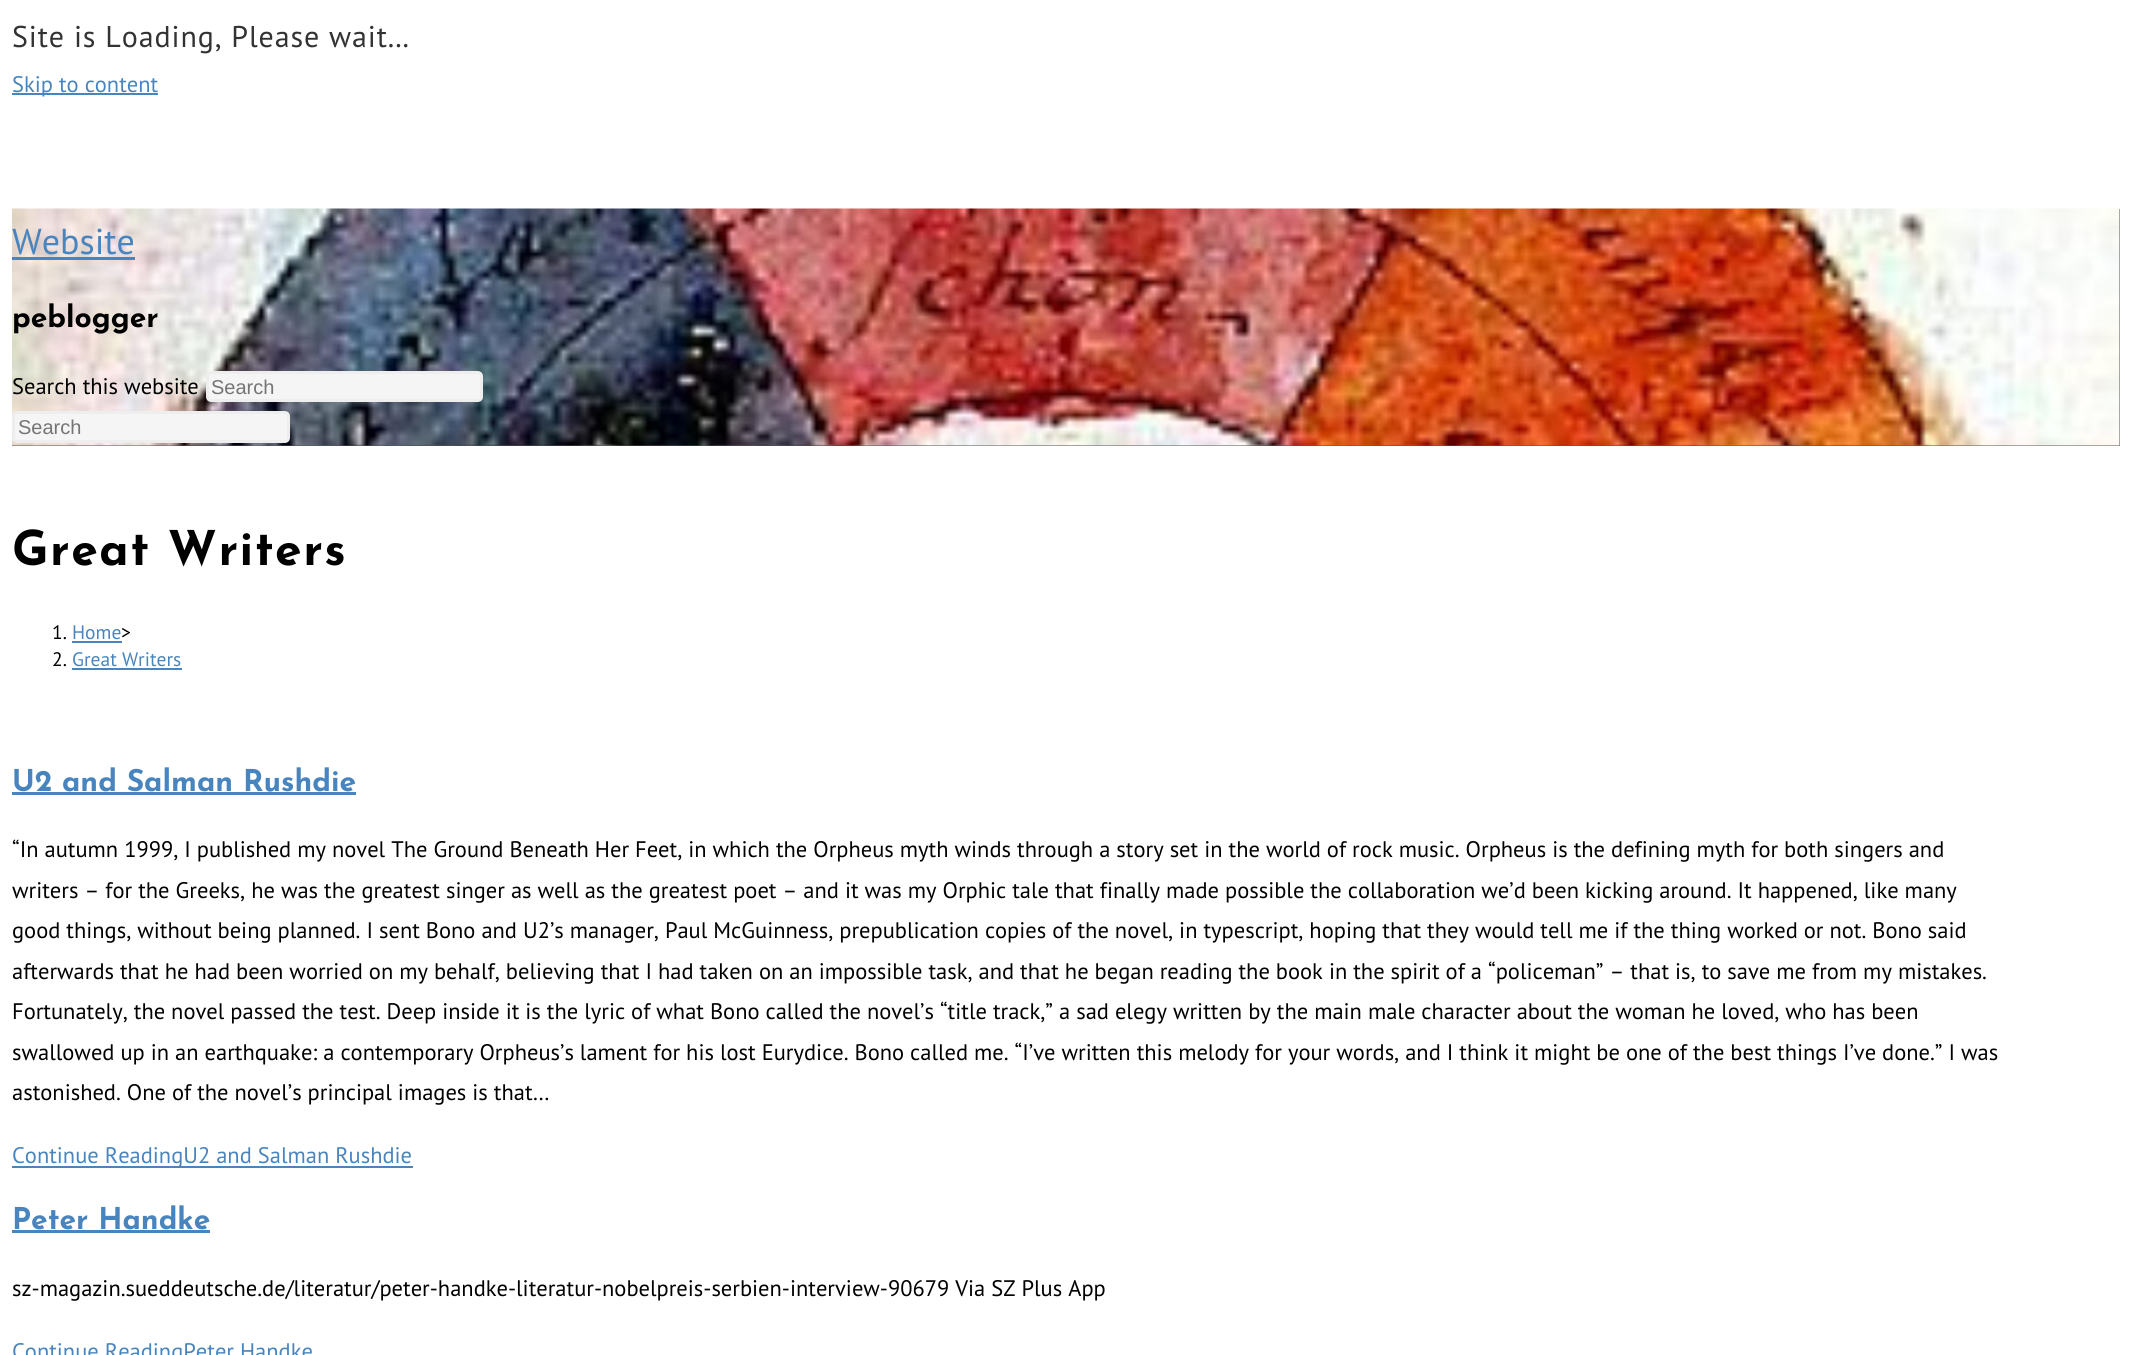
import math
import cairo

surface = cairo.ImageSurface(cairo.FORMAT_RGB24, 2131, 1355)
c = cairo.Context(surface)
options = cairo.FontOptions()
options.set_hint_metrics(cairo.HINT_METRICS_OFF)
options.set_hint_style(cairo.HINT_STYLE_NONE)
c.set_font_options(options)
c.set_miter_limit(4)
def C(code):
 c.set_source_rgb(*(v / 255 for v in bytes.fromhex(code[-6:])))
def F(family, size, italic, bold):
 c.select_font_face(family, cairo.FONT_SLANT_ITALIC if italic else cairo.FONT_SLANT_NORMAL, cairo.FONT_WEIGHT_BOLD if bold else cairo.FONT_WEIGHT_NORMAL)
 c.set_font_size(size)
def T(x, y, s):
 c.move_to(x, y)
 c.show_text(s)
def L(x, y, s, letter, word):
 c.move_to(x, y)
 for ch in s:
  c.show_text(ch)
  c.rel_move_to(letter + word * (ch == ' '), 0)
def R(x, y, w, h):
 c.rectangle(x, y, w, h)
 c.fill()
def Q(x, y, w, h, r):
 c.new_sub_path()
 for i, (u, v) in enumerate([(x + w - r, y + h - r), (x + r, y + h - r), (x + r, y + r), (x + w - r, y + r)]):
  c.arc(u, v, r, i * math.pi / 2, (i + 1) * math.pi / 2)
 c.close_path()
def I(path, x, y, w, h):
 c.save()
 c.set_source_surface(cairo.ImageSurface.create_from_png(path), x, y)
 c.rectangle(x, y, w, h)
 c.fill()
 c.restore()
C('ffffff')
c.paint()
F('PT Sans',30,0,0)
C('333333')
L(12,47,'Site is Loading, Please wait...',.9,0)
C('4885bf')
R(12,93,146,2)
F('PT Sans',22.5,0,0)
T(12,92,'Skip to content')
C('545454')
R(12,209,2108,237)
I('1.png',12,208,2108,238)
F('PT Sans',36,0,0)
C('4885bf')
T(12,254,'Website')
R(12,257,123,3)
F('Josefin Sans',30,0,1)
C('000000')
T(12,327,'peblogger')
F('PT Sans',22.5,0,0)
T(12,394,'Search this website')
C('f5f5f5')
Q(207.5,372.5,274,28,3.5)
c.fill_preserve()
C('eeeeee')
c.set_line_width(3)
c.stroke()
F('Liberation Sans',20,0,0)
C('757575')
T(211,394,'Search')
C('f5f5f5')
Q(13.5,412.5,275,29,3.5)
c.fill_preserve()
C('eeeeee')
c.stroke()
C('757575')
T(18,434,'Search')
F('Josefin Sans',48,0,1)
C('000000')
L(12,565,'Great Writers',1.5,0)
F('PT Sans',19.5,0,0)
T(52,639,'1.')
C('4885bf')
T(72,639,'Home')
R(72,641,50,2)
C('000000')
T(121,639,'>')
T(52,666,'2.')
C('4885bf')
T(72,666,'Great Writers')
R(72,668,110,2)
F('Josefin Sans',30,0,1)
T(12,791,'U2 and Salman Rushdie')
R(12,792,344,3)
F('PT Sans',22.5,0,0)
C('000000')
T(12,857,'“In autumn 1999, I published my novel The Ground Beneath Her Feet, in which the Orpheus myth winds through a story set in the world of rock music. Orpheus is the defining myth for both singers and')
T(12,898,'writers – for the Greeks, he was the greatest singer as well as the greatest poet – and it was my Orphic tale that finally made possible the collaboration we’d been kicking around. It happened, like many')
T(12,938,'good things, without being planned. I sent Bono and U2’s manager, Paul McGuinness, prepublication copies of the novel, in typescript, hoping that they would tell me if the thing worked or not. Bono said')
T(12,979,'afterwards that he had been worried on my behalf, believing that I had taken on an impossible task, and that he began reading the book in the spirit of a “policeman” – that is, to save me from my mistakes.')
T(12,1019,'Fortunately, the novel passed the test. Deep inside it is the lyric of what Bono called the novel’s “title track,” a sad elegy written by the main male character about the woman he loved, who has been')
T(12,1060,'swallowed up in an earthquake: a contemporary Orpheus’s lament for his lost Eurydice. Bono called me. “I’ve written this melody for your words, and I think it might be one of the best things I’ve done.” I was')
T(12,1100,'astonished. One of the novel’s principal images is that…')
C('4885bf')
R(12,1166,401,2)
T(12,1163,'Continue ReadingU2 and Salman Rushdie')
F('Josefin Sans',30,0,1)
T(12,1229,'Peter Handke')
R(12,1230,198,3)
F('PT Sans',22.5,0,0)
C('000000')
T(12,1296,'sz-magazin.sueddeutsche.de/literatur/peter-handke-literatur-nobelpreis-serbien-interview-90679 Via SZ Plus App')
C('4885bf')
T(12,1359,'Continue ReadingPeter Handke')
surface.write_to_png('o.png')
